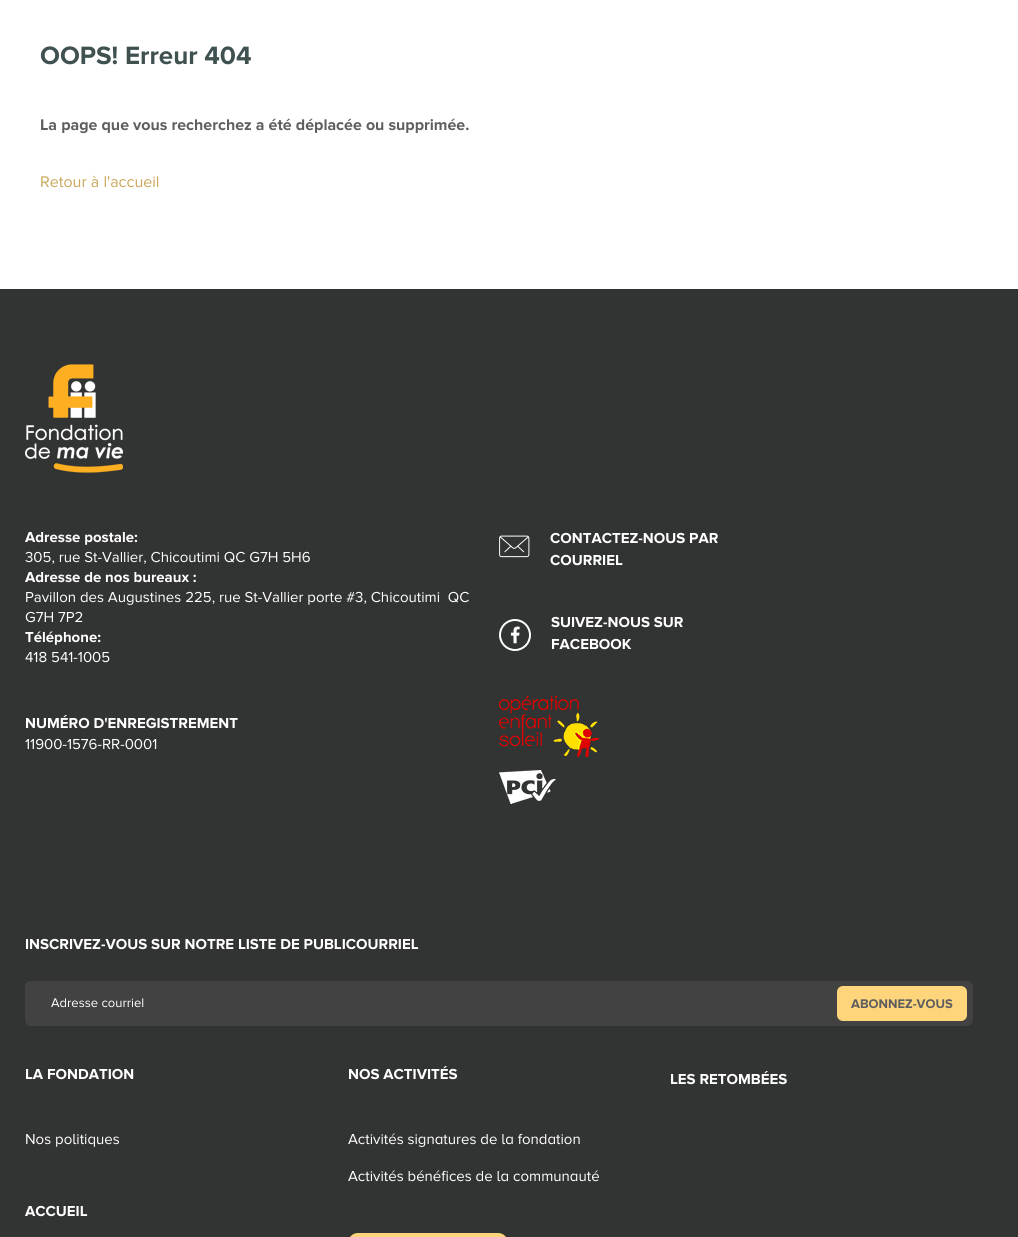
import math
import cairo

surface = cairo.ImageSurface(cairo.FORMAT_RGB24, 1018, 1237)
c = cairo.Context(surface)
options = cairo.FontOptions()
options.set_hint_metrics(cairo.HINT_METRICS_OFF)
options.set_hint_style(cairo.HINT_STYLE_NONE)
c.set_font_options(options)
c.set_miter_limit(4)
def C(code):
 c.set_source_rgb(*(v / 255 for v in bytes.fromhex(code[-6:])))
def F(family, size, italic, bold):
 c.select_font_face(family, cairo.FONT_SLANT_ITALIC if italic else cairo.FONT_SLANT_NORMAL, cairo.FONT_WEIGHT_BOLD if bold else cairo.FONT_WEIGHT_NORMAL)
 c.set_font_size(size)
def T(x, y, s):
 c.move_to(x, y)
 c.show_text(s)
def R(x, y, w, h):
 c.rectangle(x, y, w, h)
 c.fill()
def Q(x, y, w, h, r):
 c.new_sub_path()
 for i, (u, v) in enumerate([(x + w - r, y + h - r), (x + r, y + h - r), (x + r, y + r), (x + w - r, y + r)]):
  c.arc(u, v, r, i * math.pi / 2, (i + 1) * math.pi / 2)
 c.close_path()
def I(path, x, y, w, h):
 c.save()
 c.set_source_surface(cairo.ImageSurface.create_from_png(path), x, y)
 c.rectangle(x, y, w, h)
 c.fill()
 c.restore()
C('ffffff')
c.paint()
F('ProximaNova',26,0,0)
C('405152')
T(40,64,'OOPS! Erreur 404')
F('ProximaNova',16,0,0)
C('5e5e5e')
T(40,130,'La page que vous recherchez a été déplacée ou supprimée.')
F('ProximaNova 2',16,0,0)
C('caa759')
T(40,187,'Retour à l\'accueil')
C('323333')
R(0,289,1018,948)
I('1.png',25,364,98,109)
F('ProximaNova',15,0,0)
C('ffffff')
T(25,542,'Adresse postale:')
F('ProximaNova 2',15,0,0)
T(25,562,'305, rue St-Vallier, Chicoutimi QC G7H 5H6')
F('ProximaNova',15,0,0)
T(25,582,'Adresse de nos bureaux :')
F('ProximaNova 2',15,0,0)
T(25,602,'Pavillon des Augustines 225, rue St-Vallier porte #3, Chicoutimi  QC')
T(25,622,'G7H 7P2')
F('ProximaNova',15,0,0)
T(25,642,'Téléphone:')
F('ProximaNova 2',15,0,0)
T(25,662,'418 541-1005')
F('ProximaNova',15,0,0)
T(25,728,'NUMÉRO D\'ENREGISTREMENT')
F('ProximaNova 2',15,0,0)
T(25,749,'11900-1576-RR-0001')
I('2.png',499,535,31,23)
F('ProximaNova',15,0,0)
T(550,543,'CONTACTEZ-NOUS PAR')
T(550,565,'COURRIEL')
c.new_path()
c.arc(515,635,15,0,2 * math.pi)
c.stroke()
I('3.png',510,626,10,18)
T(551,627,'SUIVEZ-NOUS SUR')
T(551,649,'FACEBOOK')
I('4.png',499,696,100,61)
I('5.png',499,770,57,34)
T(25,949,'INSCRIVEZ-VOUS SUR NOTRE LISTE DE PUBLICOURRIEL')
C('424242')
Q(25,981,948,45,6)
c.fill()
F('ProximaNova 2',13,0,0)
C('ffffff')
T(51,1007,'Adresse courriel')
C('fed57b')
Q(837,986,130,35,6)
c.fill()
F('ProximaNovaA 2',13,0,0)
C('5e5e5e')
T(851,1008,'ABONNEZ-VOUS')
F('ProximaNova',15,0,0)
C('ffffff')
T(25,1079,'LA FONDATION')
F('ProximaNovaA',15,0,0)
T(25,1144,'Nos politiques')
F('ProximaNova',15,0,0)
T(25,1216,'ACCUEIL')
T(348,1079,'NOS ACTIVITÉS')
F('ProximaNovaA',15,0,0)
T(348,1144,'Activités signatures de la fondation')
T(348,1181,'Activités bénéfices de la communauté')
C('fed57b')
Q(348,1233,160,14,10)
c.fill()
F('ProximaNova',15,0,0)
C('ffffff')
T(670,1084,'LES RETOMBÉES')
surface.write_to_png('o.png')
